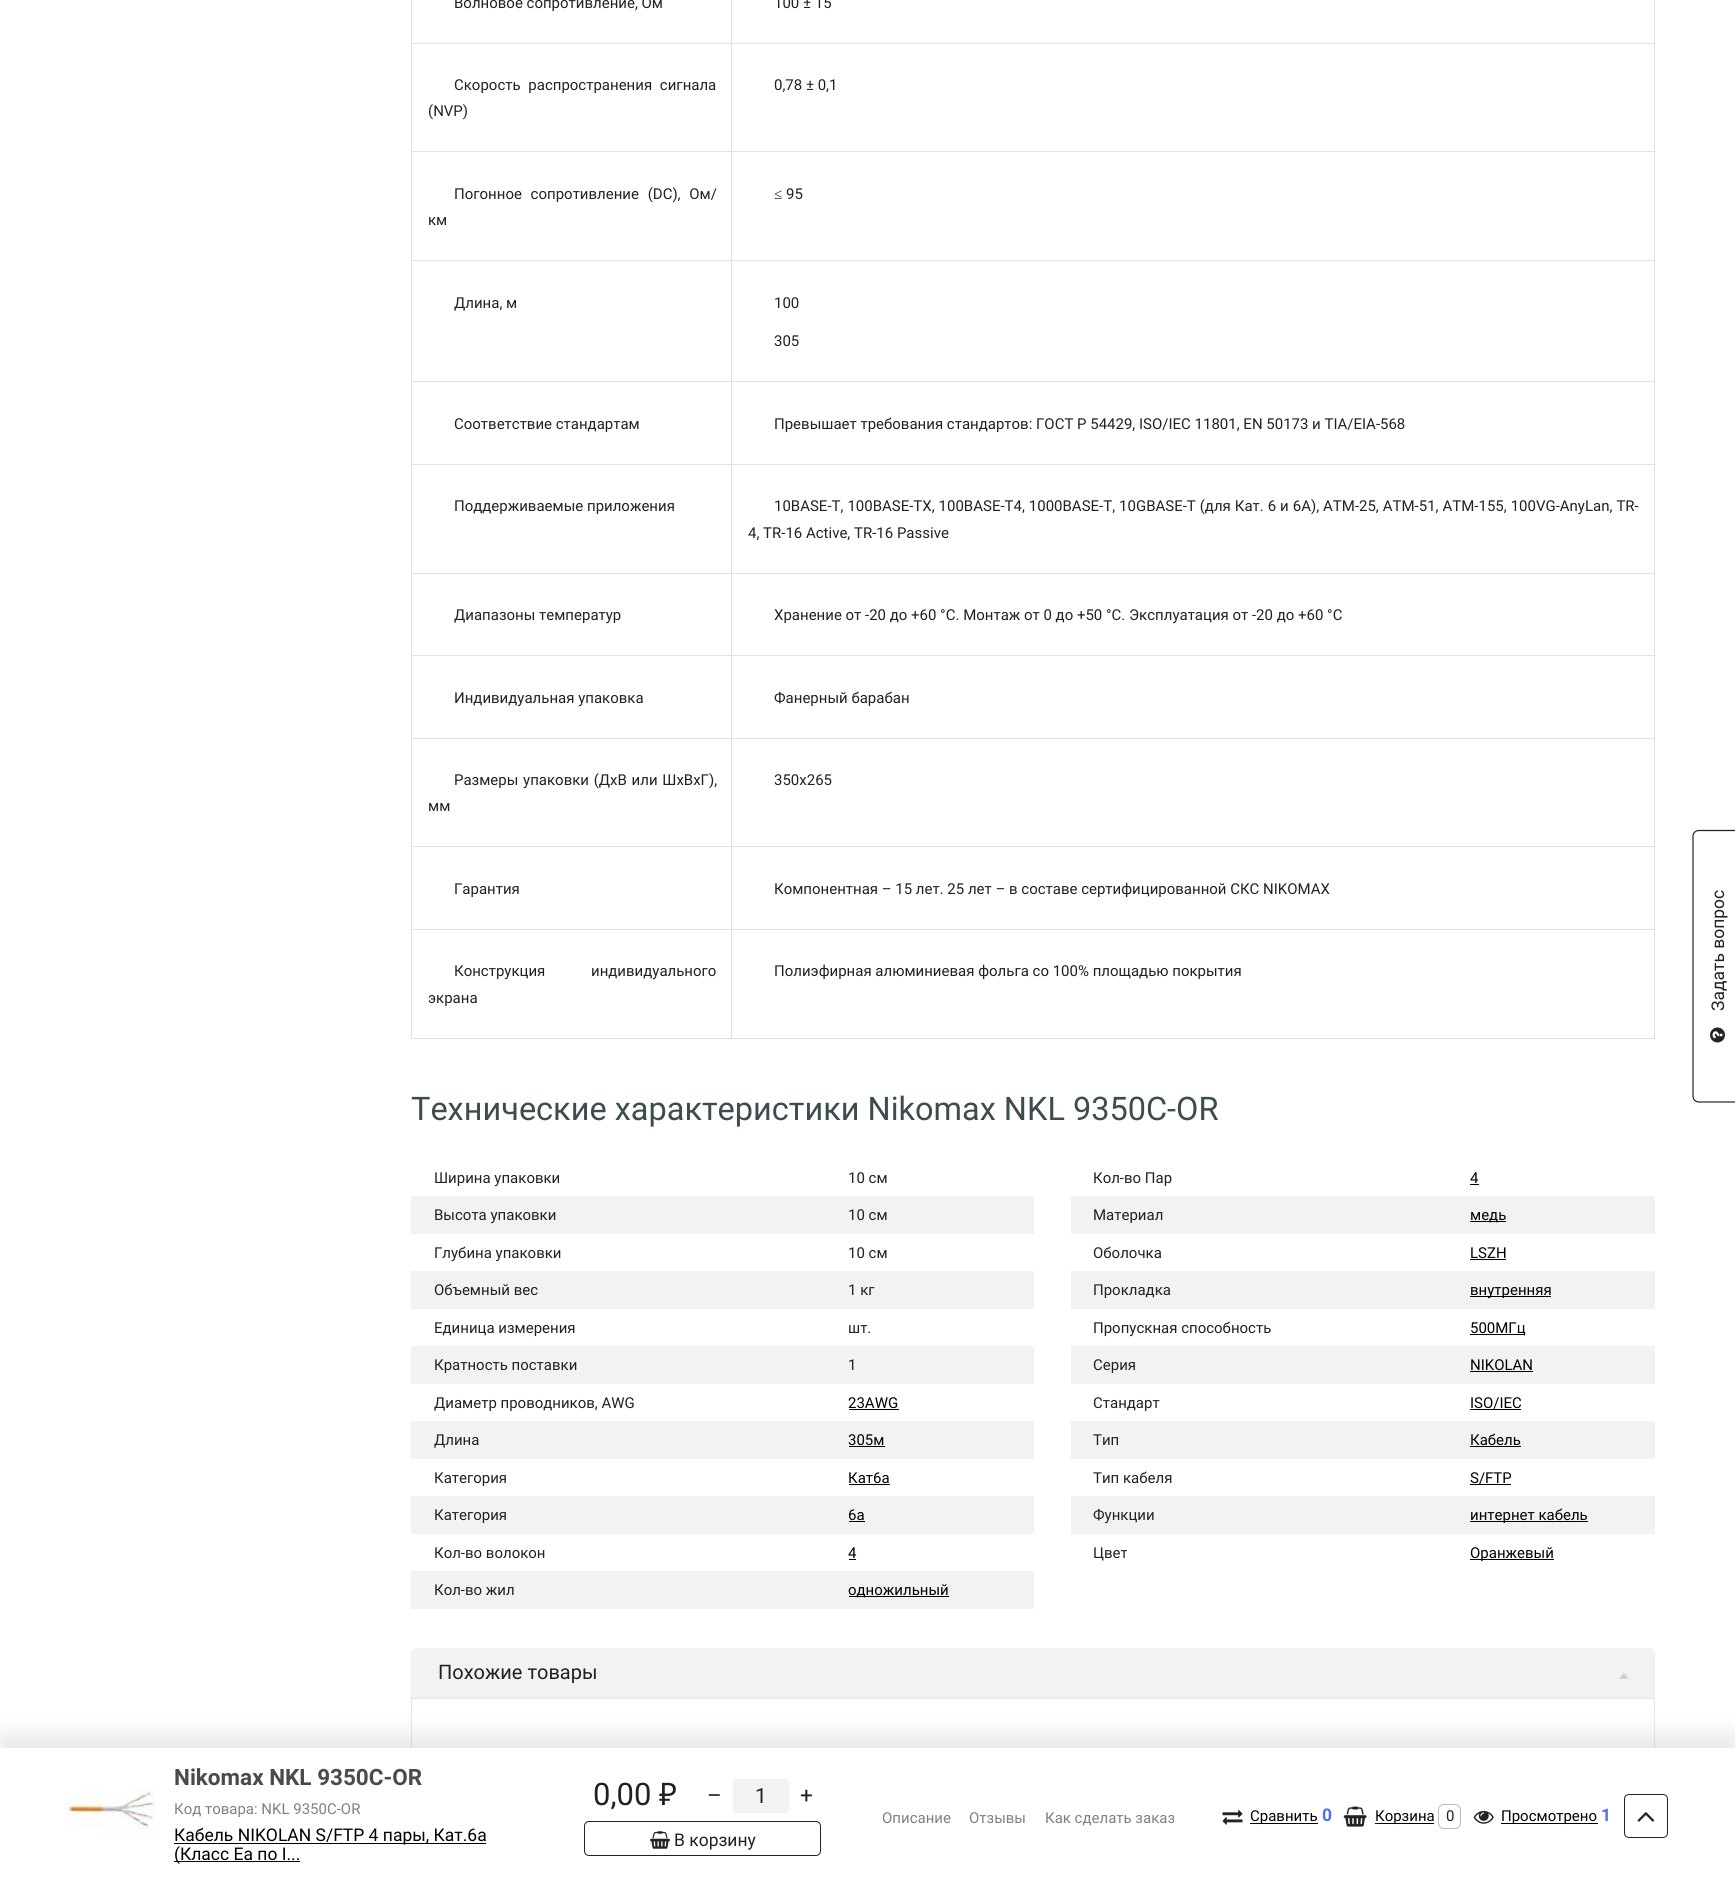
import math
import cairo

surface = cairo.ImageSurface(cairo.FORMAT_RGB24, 1735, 1882)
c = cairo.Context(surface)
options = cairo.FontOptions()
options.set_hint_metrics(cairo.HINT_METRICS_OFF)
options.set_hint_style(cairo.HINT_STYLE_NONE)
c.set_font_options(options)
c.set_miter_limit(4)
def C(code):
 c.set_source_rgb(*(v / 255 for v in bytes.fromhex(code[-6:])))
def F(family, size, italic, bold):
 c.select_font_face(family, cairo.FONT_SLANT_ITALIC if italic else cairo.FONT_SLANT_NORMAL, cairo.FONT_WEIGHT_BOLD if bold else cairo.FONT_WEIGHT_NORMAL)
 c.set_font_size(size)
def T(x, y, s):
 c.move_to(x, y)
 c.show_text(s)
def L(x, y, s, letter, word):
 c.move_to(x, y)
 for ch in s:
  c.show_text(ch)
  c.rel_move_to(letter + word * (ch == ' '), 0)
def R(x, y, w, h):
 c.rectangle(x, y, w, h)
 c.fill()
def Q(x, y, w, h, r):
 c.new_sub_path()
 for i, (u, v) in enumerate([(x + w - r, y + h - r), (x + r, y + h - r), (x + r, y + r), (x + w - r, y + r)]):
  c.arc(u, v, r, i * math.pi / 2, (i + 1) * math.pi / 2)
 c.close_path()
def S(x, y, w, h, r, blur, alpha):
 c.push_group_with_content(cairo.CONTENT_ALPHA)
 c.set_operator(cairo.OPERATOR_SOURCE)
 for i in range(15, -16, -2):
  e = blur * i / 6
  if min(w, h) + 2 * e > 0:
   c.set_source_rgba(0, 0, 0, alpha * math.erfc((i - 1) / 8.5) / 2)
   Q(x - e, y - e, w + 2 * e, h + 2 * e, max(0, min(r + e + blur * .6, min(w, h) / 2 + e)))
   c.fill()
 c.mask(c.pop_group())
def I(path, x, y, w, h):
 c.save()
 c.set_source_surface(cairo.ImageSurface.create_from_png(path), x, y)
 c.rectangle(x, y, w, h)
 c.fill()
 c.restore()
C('ffffff')
c.paint()
C('dee2e6')
R(1654,0,1,1039)
R(411,1038,1244,1)
R(411,0,1,1039)
F('Roboto',15,0,0)
C('212121')
T(454,8,'Волновое сопротивление, Ом')
C('dee2e6')
R(731,43,924,1)
R(731,151,924,1)
R(731,260,924,1)
R(731,381,924,1)
R(731,464,924,1)
R(731,573,924,1)
R(731,655,924,1)
R(731,738,924,1)
R(731,846,924,1)
R(731,929,924,1)
R(731,929,1,110)
R(411,929,322,1)
R(731,846,1,84)
R(411,846,322,1)
R(731,738,1,110)
R(411,738,322,1)
R(731,655,1,84)
R(411,655,322,1)
R(731,573,1,83)
R(411,573,322,1)
R(731,464,1,110)
R(411,464,322,1)
R(731,381,1,84)
R(411,381,322,1)
R(731,260,1,123)
R(411,260,322,1)
R(731,151,1,110)
R(411,151,322,1)
R(731,43,1,110)
R(411,43,322,1)
R(731,0,1,44)
C('212121')
T(774,8,'100 ± 15')
L(454,90,'Скорость распространения сигнала',0,4)
T(428,116,'(NVP)')
T(774,90,'0,78 ± 0,1')
L(454,199,'Погонное сопротивление (DC), Ом/',0,5)
T(428,225,'км')
F('Liberation Serif',15,0,0)
T(774,199,'≤')
F('Roboto',15,0,0)
T(786,199,'95')
T(454,308,'Длина, м')
T(774,308,'100')
T(774,346,'305')
T(454,429,'Соответствие стандартам')
T(774,429,'Превышает требования стандартов: ГОСТ Р 54429, ISO/IEC 11801, EN 50173 и TIA/EIA-568')
T(454,511,'Поддерживаемые приложения')
L(774,511,'10BASE-T, 100BASE-TX, 100BASE-T4, 1000BASE-T, 10GBASE-T (для Кат. 6 и 6А), ATM-25, ATM-51, ATM-155, 100VG-AnyLan, TR-',0,.25)
T(748,538,'4, TR-16 Active, TR-16 Passive')
T(454,620,'Диапазоны температур')
T(774,620,'Хранение от -20 до +60 °C. Монтаж от 0 до +50 °C. Эксплуатация от -20 до +60 °C')
T(454,703,'Индивидуальная упаковка')
T(774,703,'Фанерный барабан')
L(454,785,'Размеры упаковки (ДхВ или ШхВхГ),',0,1)
T(428,811,'мм')
T(774,785,'350х265')
T(454,894,'Гарантия')
T(774,894,'Компонентная – 15 лет. 25 лет – в составе сертифицированной СКС NIKOMAX')
L(454,976,'Конструкция индивидуального',0,42)
T(428,1003,'экрана')
T(774,976,'Полиэфирная алюминиевая фольга со 100% площадью покрытия')
F('Roboto',32.5,0,0)
C('3d4c4d')
T(411,1120,'Технические характеристики Nikomax NKL 9350C-OR')
F('Roboto',15,0,0)
C('212121')
T(434,1183,'Ширина упаковки')
T(848,1183,'10 см')
C('f2f2f2')
R(411,1196,623,38)
C('212121')
T(434,1220,'Высота упаковки')
T(848,1220,'10 см')
T(434,1258,'Глубина упаковки')
T(848,1258,'10 см')
C('f2f2f2')
R(411,1271,623,38)
C('212121')
T(434,1295,'Объемный вес')
T(848,1295,'1 кг')
T(434,1333,'Единица измерения')
T(848,1333,'шт.')
C('f2f2f2')
R(411,1346,623,38)
C('212121')
T(434,1370,'Кратность поставки')
T(848,1370,'1')
T(434,1408,'Диаметр проводников, AWG')
C('000000')
T(848,1408,'23AWG')
R(849,1409,50,1)
C('f2f2f2')
R(411,1421,623,38)
C('212121')
T(434,1445,'Длина')
C('000000')
T(848,1445,'305м')
R(849,1446,36,1)
C('212121')
T(434,1483,'Категория')
C('000000')
T(848,1483,'Кат6a')
R(849,1484,41,1)
C('f2f2f2')
R(411,1496,623,38)
C('212121')
T(434,1520,'Категория')
C('000000')
T(848,1520,'6a')
R(849,1521,16,1)
C('212121')
T(434,1558,'Кол-во волокон')
C('000000')
T(848,1558,'4')
R(849,1559,7,1)
C('f2f2f2')
R(411,1571,623,38)
C('212121')
T(434,1595,'Кол-во жил')
C('000000')
R(849,1596,100,1)
T(848,1595,'одножильный')
C('212121')
T(1093,1183,'Кол-во Пар')
C('000000')
T(1470,1183,'4')
R(1470,1184,9,1)
C('f2f2f2')
R(1071,1196,584,38)
C('212121')
T(1093,1220,'Материал')
C('000000')
R(1470,1221,36,1)
T(1470,1220,'медь')
C('212121')
T(1093,1258,'Оболочка')
C('000000')
T(1470,1258,'LSZH')
R(1470,1259,36,1)
C('f2f2f2')
R(1071,1271,584,38)
C('212121')
T(1093,1295,'Прокладка')
C('000000')
R(1470,1296,81,1)
T(1470,1295,'внутренняя')
C('212121')
T(1093,1333,'Пропускная способность')
C('000000')
R(1470,1334,55,1)
T(1470,1333,'500МГц')
C('f2f2f2')
R(1071,1346,584,38)
C('212121')
T(1093,1370,'Серия')
C('000000')
T(1470,1370,'NIKOLAN')
R(1470,1371,63,1)
C('212121')
T(1093,1408,'Стандарт')
C('000000')
T(1470,1408,'ISO/IEC')
R(1470,1409,51,1)
C('f2f2f2')
R(1071,1421,584,38)
C('212121')
T(1093,1445,'Тип')
C('000000')
T(1470,1445,'Кабель')
R(1470,1446,51,1)
C('212121')
T(1093,1483,'Тип кабеля')
C('000000')
T(1470,1483,'S/FTP')
R(1470,1484,41,1)
C('f2f2f2')
R(1071,1496,584,38)
C('212121')
T(1093,1520,'Функции')
C('000000')
R(1470,1521,118,1)
T(1470,1520,'интернет кабель')
C('212121')
T(1093,1558,'Цвет')
C('000000')
R(1470,1559,84,1)
T(1470,1558,'Оранжевый')
C('f2f2f2')
c.new_path()
c.move_to(417,1648)
c.line_to(1649,1648)
c.curve_to(1652.5,1648,1655,1650.5,1655,1654)
c.line_to(1655,1698)
c.line_to(411,1698)
c.line_to(411,1654)
c.curve_to(411,1650.5,413.5,1648,417,1648)
c.close_path()
c.fill()
F('Roboto',20,0,0)
C('212121')
T(438,1679,'Похожие товары')
I('1.png',1619,1673,10,6)
C('e6e6e6')
c.set_fill_rule(cairo.FILL_RULE_EVEN_ODD)
c.new_path()
c.move_to(412,1699)
c.line_to(1654,1699)
c.line_to(1654,1767)
c.curve_to(1655,1766,1655,1765,1655,1764)
c.line_to(1655,1698)
c.line_to(411,1698)
c.line_to(411,1764)
c.curve_to(411,1765,411,1766,412,1767)
c.close_path()
c.move_to(1649,1770)
c.line_to(1652,1769)
c.line_to(414,1769)
c.line_to(417,1770)
c.close_path()
c.fill()
c.new_path()
c.move_to(1693,1096)
c.line_to(1693,836)
c.curve_to(1693,833,1695.5,830.5,1699,830.5)
c.line_to(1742,830.5)
c.line_to(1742,1102)
c.line_to(1699,1102)
c.curve_to(1695.5,1102,1693,1099.5,1693,1096)
c.close_path()
C('232323')
c.set_line_width(1.2)
c.stroke()
F('Roboto',17.5,0,0)
C('212121')
c.save()
c.translate(1724,1011)
c.rotate(-90 * math.pi / 180)
T(0,0,'Задать вопрос')
c.restore()
I('2.png',1710,1027,15,16)
C('000000')
S(0,1735,1735,135,0,12.5,.1)
C('ffffff')
R(0,1748,1735,134)
I('3.png',67,1789,88,40)
F('Roboto',22.5,0,1)
C('494a4c')
T(174,1785,'Nikomax NKL 9350C-OR')
F('Roboto',15,0,0)
C('808080')
T(174,1814,'Код товара: NKL 9350C-OR')
C('000000')
R(174,1843,312,1)
F('Roboto',17.5,0,0)
T(174,1841,'Кабель NIKOLAN S/FTP 4 пары, Кат.6a')
R(174,1861,126,1)
T(174,1860,'(Класс Ea по I...')
F('Roboto',31,0,0)
C('212121')
T(593,1805,'0,00')
F('Noto Sans',31,0,0)
T(659,1805,'₽')
F('Roboto',22.5,0,0)
T(707,1803,'–')
C('f2f2f2')
Q(733,1779,56,34,4)
c.fill()
F('Roboto',21,0,0)
C('212121')
T(755,1803,'1')
F('Roboto',22.5,0,0)
T(800,1803,'+')
Q(584.5,1821.5,236,34,4.5)
C('232323')
c.set_line_width(1)
c.stroke()
I('4.png',650,1831,20,18)
F('Roboto',17.5,0,0)
C('212121')
T(674,1846,'В корзину')
F('Roboto',15,0,0)
C('808080')
T(882,1823,'Описание')
T(969,1823,'Отзывы')
T(1045,1823,'Как сделать заказ')
I('5.png',1222,1809,21,16)
C('000000')
R(1250,1823,68,1)
T(1250,1821,'Сравнить')
F('Roboto',17.5,0,1)
C('506df9')
T(1322,1821,'0')
I('6.png',1343,1806,24,21)
C('000000')
R(1375,1823,59,1)
F('Roboto',15,0,0)
T(1375,1821,'Корзина')
Q(1438.5,1804.5,22,24,5.5)
C('bbbbbb')
c.stroke()
C('212121')
T(1446,1821,'0')
I('7.png',1473,1810,21,14)
C('000000')
R(1501,1823,97,1)
T(1501,1821,'Просмотрено')
F('Roboto',17.5,0,1)
C('506df9')
T(1601,1821,'1')
Q(1624.5,1794.5,43,43,4.5)
C('232323')
c.stroke()
I('8.png',1637,1812,18,10)
surface.write_to_png('o.png')
